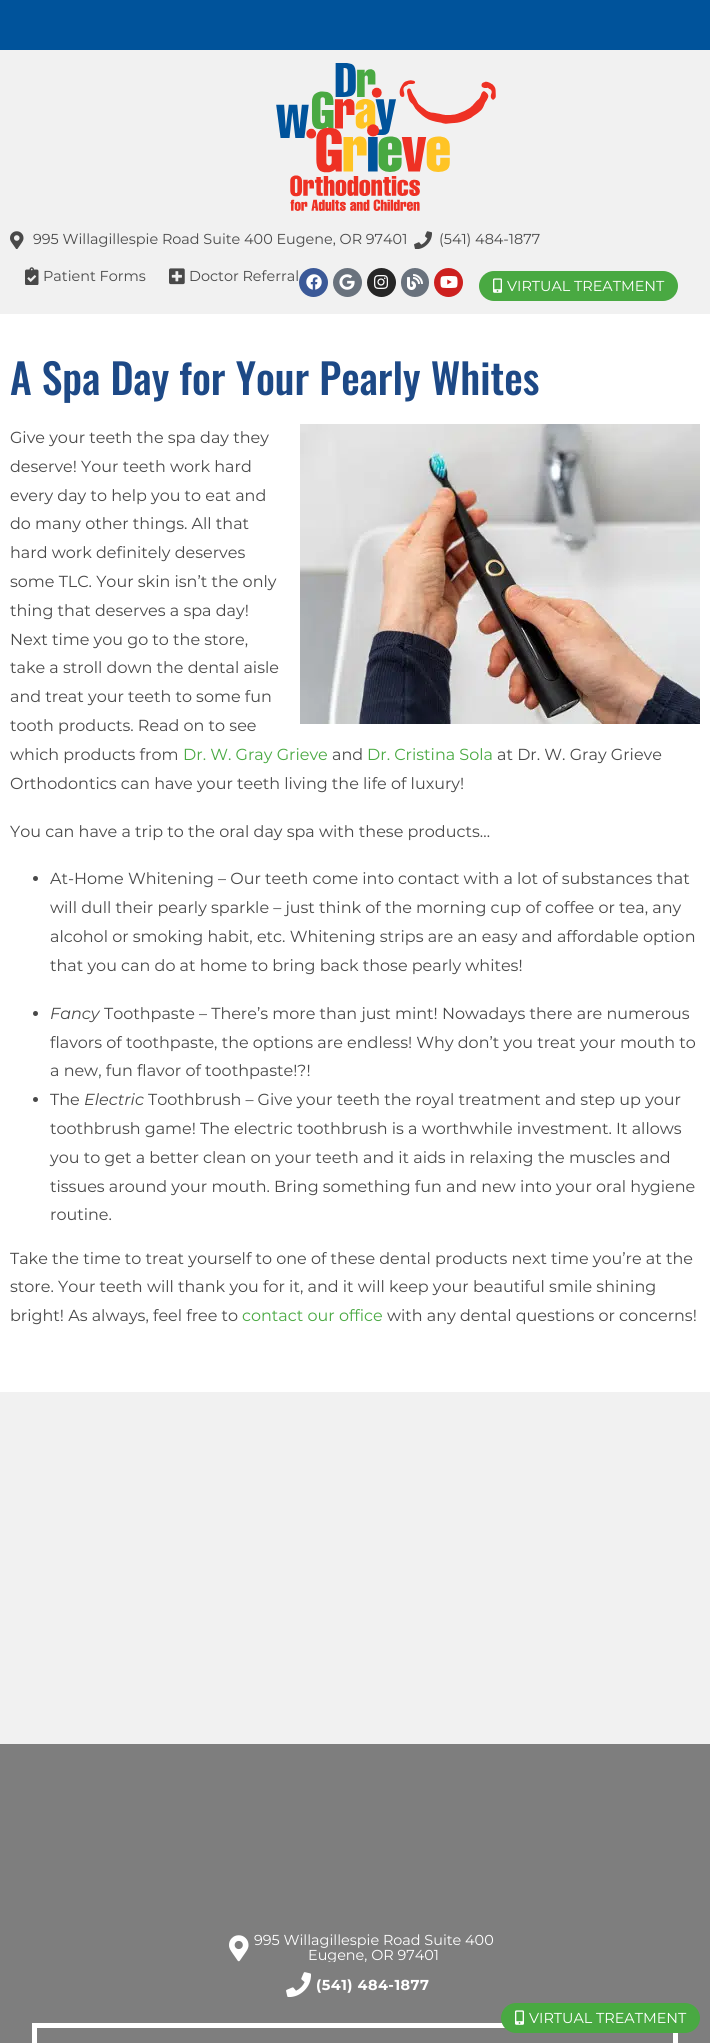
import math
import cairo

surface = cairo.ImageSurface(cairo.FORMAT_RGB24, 710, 2043)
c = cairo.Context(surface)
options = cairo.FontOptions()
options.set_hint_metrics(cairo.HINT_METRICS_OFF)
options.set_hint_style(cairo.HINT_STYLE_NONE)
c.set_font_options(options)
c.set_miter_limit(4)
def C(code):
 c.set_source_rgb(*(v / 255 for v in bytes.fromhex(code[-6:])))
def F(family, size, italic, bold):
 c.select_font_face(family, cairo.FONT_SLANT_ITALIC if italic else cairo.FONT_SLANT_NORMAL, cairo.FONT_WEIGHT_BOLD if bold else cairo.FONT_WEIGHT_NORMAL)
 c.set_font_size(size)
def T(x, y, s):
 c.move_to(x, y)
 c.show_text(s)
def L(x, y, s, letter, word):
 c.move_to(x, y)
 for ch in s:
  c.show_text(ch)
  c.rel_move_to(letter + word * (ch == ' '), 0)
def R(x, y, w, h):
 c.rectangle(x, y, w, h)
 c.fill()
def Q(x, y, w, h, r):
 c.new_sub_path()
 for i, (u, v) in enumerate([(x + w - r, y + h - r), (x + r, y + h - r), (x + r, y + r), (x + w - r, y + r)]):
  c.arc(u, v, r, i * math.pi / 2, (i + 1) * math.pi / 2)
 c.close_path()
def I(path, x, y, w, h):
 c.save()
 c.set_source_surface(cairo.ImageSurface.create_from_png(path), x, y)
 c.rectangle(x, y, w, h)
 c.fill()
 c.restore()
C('ffffff')
c.paint()
C('f1f1f1')
R(0,50,710,264)
I('1.png',276,63,220,148)
I('2.png',10,231,14,18)
F('Montserrat',14.4,0,0)
C('494949')
T(33,244,'995 Willagillespie Road Suite 400 Eugene, OR 97401')
I('3.png',414,231,18,18)
T(439,244,'(541) 484-1877')
I('4.png',25,267,14,18)
T(43,281,'Patient Forms')
I('5.png',169,268,16,17)
T(189,281,'Doctor Referral')
C('3b5998')
c.new_path()
c.arc(313.5,282.5,14.5,0,2 * math.pi)
c.fill()
I('6.png',306,274,16,16)
C('69727d')
c.arc(347.5,282.5,14.5,0,2 * math.pi)
c.fill()
I('7.png',339,274,16,16)
C('262626')
c.arc(381.5,282.5,14.5,0,2 * math.pi)
c.fill()
I('8.png',374,275,14,14)
C('69727d')
Q(401,268,28,29,14)
c.fill()
I('9.png',407,274,16,16)
C('cd201f')
c.arc(448.5,282.5,14.5,0,2 * math.pi)
c.fill()
I('10.png',440,276,18,12)
C('49a942')
Q(479,271,199,30,15)
c.fill()
I('11.png',493,278,9,15)
C('ffffff')
T(507,291,'VIRTUAL TREATMENT')
C('00539b')
R(0,0,710,50)
C('7e7e7e')
R(0,1744,710,299)
c.rectangle(34.5,2025.5,641,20)
C('ffffff')
c.set_line_width(5)
c.stroke()
C('49a942')
Q(501,2003,199,30,15)
c.fill()
I('11.png',515,2010,9,15)
C('ffffff')
T(529,2023,'VIRTUAL TREATMENT')
F('Oswald Medium',41.6,0,0)
C('1d4986')
T(10,395,'A Spa Day for Your Pearly Whites')
F('Montserrat',16,0,0)
C('494949')
T(10,443,'Give your teeth the spa day they')
I('12.png',300,424,400,300)
T(10,472,'deserve! Your teeth work hard')
T(10,501,'every day to help you to eat and')
T(10,529,'do many other things. All that')
T(10,558,'hard work definitely deserves')
T(10,587,'some TLC. Your skin isn’t the only')
T(10,616,'thing that deserves a spa day!')
T(10,645,'Next time you go to the store,')
T(10,673,'take a stroll down the dental aisle')
T(10,702,'and treat your teeth to some fun')
T(10,731,'tooth products. Read on to see')
T(10,760,'which products from')
C('49a942')
T(183,760,'Dr. W. Gray Grieve')
C('494949')
T(332,760,'and')
C('49a942')
T(367,760,'Dr. Cristina Sola')
C('494949')
T(497,760,'at Dr. W. Gray Grieve')
T(10,789,'Orthodontics can have your teeth living the life of luxury!')
T(10,837,'You can have a trip to the oral day spa with these products…')
c.new_path()
c.arc(35.5,878.5,2.5,0,2 * math.pi)
c.fill()
T(50,884,'At-Home Whitening – Our teeth come into contact with a lot of substances that')
T(50,913,'will dull their pearly sparkle – just think of the morning cup of coffee or tea, any')
T(50,942,'alcohol or smoking habit, etc. Whitening strips are an easy and affordable option')
T(50,971,'that you can do at home to bring back those pearly whites!')
c.new_path()
c.arc(35.5,1013.5,2.5,0,2 * math.pi)
c.fill()
F('Montserrat',16,1,0)
T(50,1019,'Fancy')
F('Montserrat',16,0,0)
T(104,1019,'Toothpaste – There’s more than just mint! Nowadays there are numerous')
T(50,1048,'flavors of toothpaste, the options are endless! Why don’t you treat your mouth to')
T(50,1076,'a new, fun flavor of toothpaste!?!')
c.new_path()
c.arc(35.5,1099.5,2.5,0,2 * math.pi)
c.fill()
T(50,1105,'The')
F('Montserrat',16,1,0)
T(84,1105,'Electric')
F('Montserrat',16,0,0)
T(148,1105,'Toothbrush – Give your teeth the royal treatment and step up your')
T(50,1134,'toothbrush game! The electric toothbrush is a worthwhile investment. It allows')
T(50,1163,'you to get a better clean on your teeth and it aids in relaxing the muscles and')
T(50,1192,'tissues around your mouth. Bring something fun and new into your oral hygiene')
T(50,1220,'routine.')
T(10,1264,'Take the time to treat yourself to one of these dental products next time you’re at the')
T(10,1292,'store. Your teeth will thank you for it, and it will keep your beautiful smile shining')
T(10,1321,'bright! As always, feel free to')
C('49a942')
T(242,1321,'contact our office')
C('494949')
T(387,1321,'with any dental questions or concerns!')
C('f1f1f1')
R(0,1392,710,352)
I('13.png',229,1935,20,27)
F('Montserrat',14.4,0,0)
C('ffffff')
T(254,1945,'995 Willagillespie Road Suite 400')
c.save()
c.rectangle(10,1933,690,29)
c.clip()
T(308,1960,'Eugene, OR 97401')
c.restore()
I('14.png',286,1972,25,25)
F('Montserrat',14.4,0,1)
L(316,1990,'(541) 484-1877',.5,0)
surface.write_to_png('o.png')
